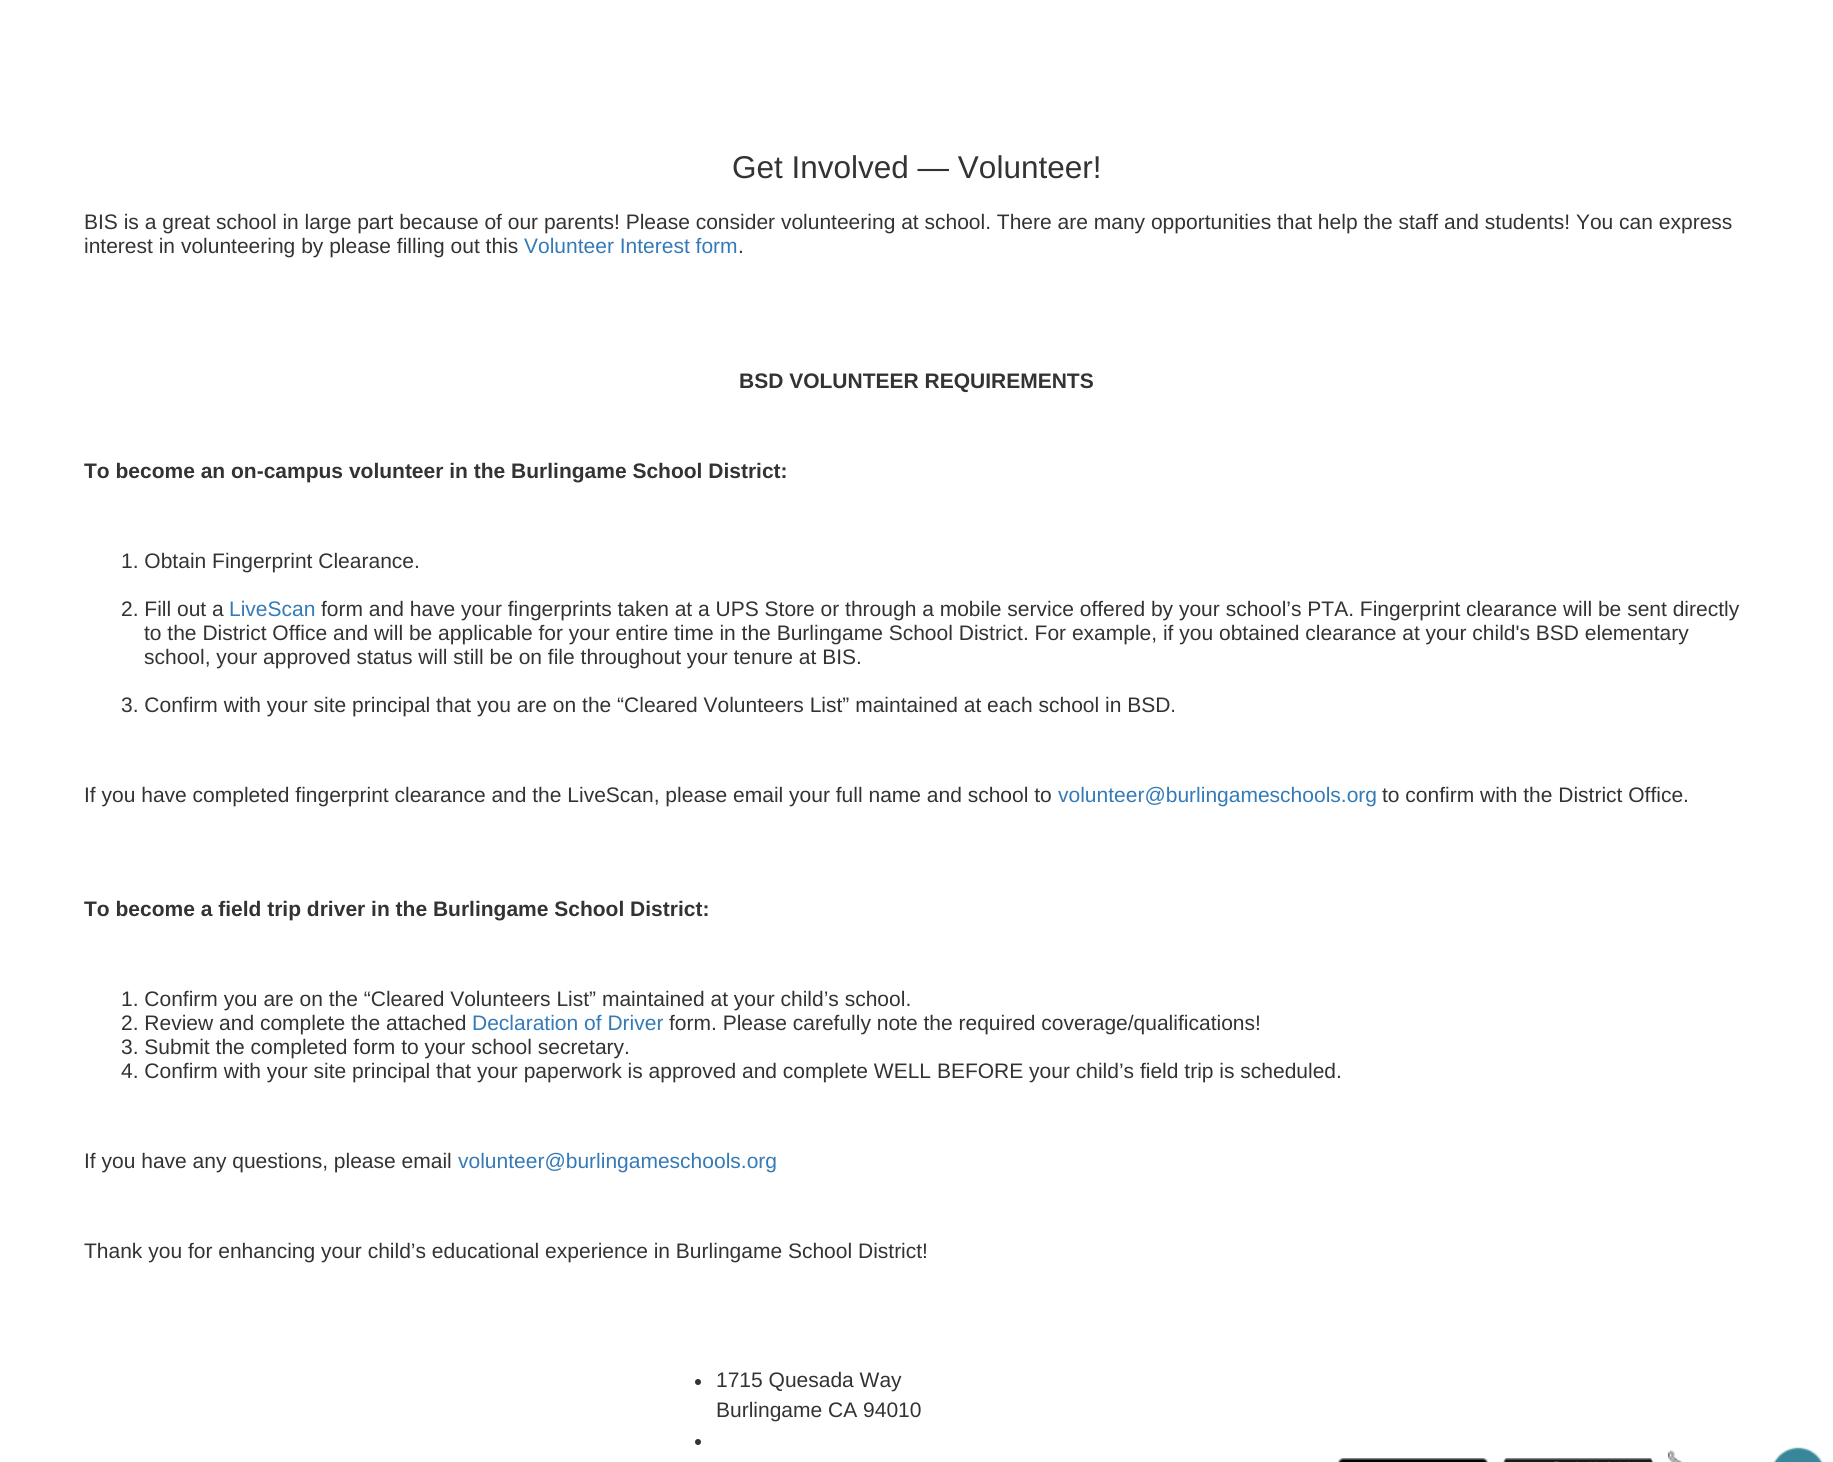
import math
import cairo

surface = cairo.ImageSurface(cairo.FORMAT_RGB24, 1833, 1462)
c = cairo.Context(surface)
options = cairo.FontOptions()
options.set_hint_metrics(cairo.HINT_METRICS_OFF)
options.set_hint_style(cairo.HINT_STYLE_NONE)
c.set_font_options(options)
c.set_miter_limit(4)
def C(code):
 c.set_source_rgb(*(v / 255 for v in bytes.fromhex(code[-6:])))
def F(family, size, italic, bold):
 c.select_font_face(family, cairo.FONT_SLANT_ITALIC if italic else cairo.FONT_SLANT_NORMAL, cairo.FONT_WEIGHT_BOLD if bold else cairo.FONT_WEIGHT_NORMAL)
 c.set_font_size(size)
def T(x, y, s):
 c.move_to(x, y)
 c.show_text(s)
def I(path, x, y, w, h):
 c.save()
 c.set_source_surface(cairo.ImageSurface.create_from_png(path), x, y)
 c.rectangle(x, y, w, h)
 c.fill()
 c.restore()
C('ffffff')
c.paint()
F('Liberation Sans',31.5,0,0)
C('333333')
T(732,178,'Get Involved — Volunteer!')
F('Liberation Sans',21,0,0)
T(84,229,'BIS is a great school in large part because of our parents! Please consider volunteering at school. There are many opportunities that help the staff and students! You can express')
T(84,253,'interest in volunteering by please filling out this')
C('337ab7')
T(524,253,'Volunteer Interest form')
C('333333')
T(738,253,'.')
F('Liberation Sans',21,0,1)
T(739,388,'BSD VOLUNTEER REQUIREMENTS')
T(84,478,'To become an on-campus volunteer in the Burlingame School District:')
F('Liberation Sans',21,0,0)
T(121,568,'1. Obtain Fingerprint Clearance.')
T(121,616,'2. Fill out a')
C('337ab7')
T(229,616,'LiveScan')
C('333333')
T(321,616,'form and have your fingerprints taken at a UPS Store or through a mobile service offered by your school’s PTA. Fingerprint clearance will be sent directly')
T(144,640,'to the District Office and will be applicable for your entire time in the Burlingame School District. For example, if you obtained clearance at your child\'s BSD elementary')
T(144,664,'school, your approved status will still be on file throughout your tenure at BIS.')
T(121,712,'3. Confirm with your site principal that you are on the “Cleared Volunteers List” maintained at each school in BSD.')
T(84,802,'If you have completed fingerprint clearance and the LiveScan, please email your full name and school to')
C('337ab7')
T(1058,802,'volunteer@burlingameschools.org')
C('333333')
T(1382,802,'to confirm with the District Office.')
F('Liberation Sans',21,0,1)
T(84,916,'To become a field trip driver in the Burlingame School District:')
F('Liberation Sans',21,0,0)
T(121,1006,'1. Confirm you are on the “Cleared Volunteers List” maintained at your child’s school.')
T(121,1030,'2. Review and complete the attached')
C('337ab7')
T(472,1030,'Declaration of Driver')
C('333333')
T(669,1030,'form. Please carefully note the required coverage/qualifications!')
T(121,1054,'3. Submit the completed form to your school secretary.')
T(121,1078,'4. Confirm with your site principal that your paperwork is approved and complete WELL BEFORE your child’s field trip is scheduled.')
T(84,1168,'If you have any questions, please email')
C('337ab7')
T(458,1168,'volunteer@burlingameschools.org')
C('333333')
T(84,1258,'Thank you for enhancing your child’s educational experience in Burlingame School District!')
c.new_path()
c.arc(698,1382,3,0,2 * math.pi)
c.fill()
T(716,1387,'1715 Quesada Way')
T(716,1417,'Burlingame CA 94010')
c.new_path()
c.arc(698,1442,3,0,2 * math.pi)
c.fill()
I('1.png',1338,1458,150,4)
I('2.png',1503,1458,150,4)
I('3.png',1668,1447,155,15)
surface.write_to_png('o.png')
